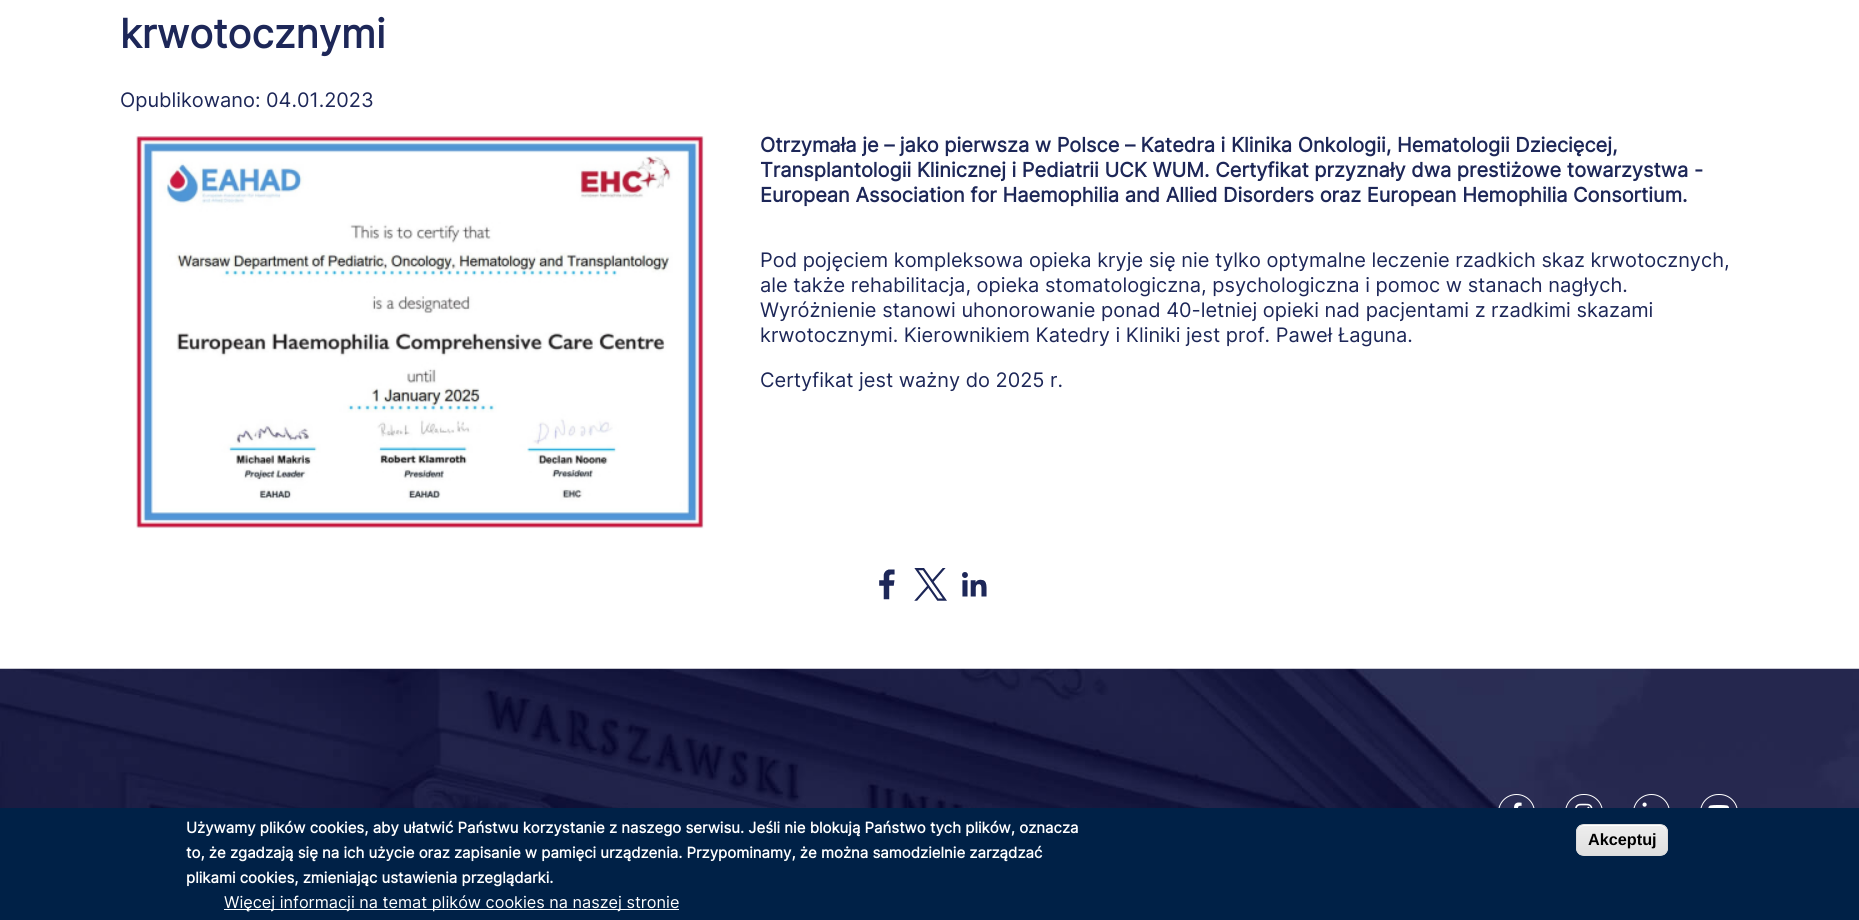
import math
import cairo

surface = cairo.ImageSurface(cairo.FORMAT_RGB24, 1859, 920)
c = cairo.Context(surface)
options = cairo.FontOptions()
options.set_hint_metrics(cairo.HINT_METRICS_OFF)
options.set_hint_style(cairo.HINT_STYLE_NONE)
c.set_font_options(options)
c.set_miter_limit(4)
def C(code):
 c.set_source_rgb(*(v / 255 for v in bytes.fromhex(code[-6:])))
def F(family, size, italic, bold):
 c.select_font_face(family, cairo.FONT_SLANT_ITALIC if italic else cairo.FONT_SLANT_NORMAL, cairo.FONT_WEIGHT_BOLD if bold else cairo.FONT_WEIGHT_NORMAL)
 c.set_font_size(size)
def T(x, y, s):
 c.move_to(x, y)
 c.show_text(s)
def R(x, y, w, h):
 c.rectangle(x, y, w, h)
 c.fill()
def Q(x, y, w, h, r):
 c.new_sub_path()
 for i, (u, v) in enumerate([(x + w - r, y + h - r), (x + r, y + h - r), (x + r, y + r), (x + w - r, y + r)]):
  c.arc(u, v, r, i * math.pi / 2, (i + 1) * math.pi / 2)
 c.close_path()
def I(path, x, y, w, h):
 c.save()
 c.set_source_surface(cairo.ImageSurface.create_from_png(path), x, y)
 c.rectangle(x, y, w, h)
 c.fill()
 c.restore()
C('ffffff')
c.paint()
F('Inter',40,0,1)
C('1d2758')
T(120,48,'krwotocznymi')
F('Inter',20,0,0)
T(120,107,'Opublikowano: 04.01.2023')
I('1.png',135,136,570,393)
F('Inter',20,0,1)
T(760,152,'Otrzymała je – jako pierwsza w Polsce – Katedra i Klinika Onkologii, Hematologii Dziecięcej,')
T(760,177,'Transplantologii Klinicznej i Pediatrii UCK WUM. Certyfikat przyznały dwa prestiżowe towarzystwa -')
T(760,202,'European Association for Haemophilia and Allied Disorders oraz European Hemophilia Consortium.')
F('Inter',20,0,0)
T(760,267,'Pod pojęciem kompleksowa opieka kryje się nie tylko optymalne leczenie rzadkich skaz krwotocznych,')
T(760,292,'ale także rehabilitacja, opieka stomatologiczna, psychologiczna i pomoc w stanach nagłych.')
T(760,317,'Wyróżnienie stanowi uhonorowanie ponad 40-letniej opieki nad pacjentami z rzadkimi skazami')
T(760,342,'krwotocznymi. Kierownikiem Katedry i Kliniki jest prof. Paweł Łaguna.')
T(760,387,'Certyfikat jest ważny do 2025 r.')
I('2.png',879,569,16,31)
I('3.png',914,568,33,33)
I('4.png',962,572,25,25)
I('5.png',0,668,1859,140)
c.arc(1516.5,812.5,18,0,2 * math.pi)
C('ffffff')
c.set_line_width(1)
c.stroke()
I('6.png',1514,802,8,6)
Q(1565.5,794.5,37,36,18)
c.stroke()
I('7.png',1575,803,18,5)
c.arc(1651.5,812.5,18,0,2 * math.pi)
c.stroke()
I('8.png',1642,802,5,5)
Q(1700.5,794.5,37,36,18)
c.stroke()
I('9.png',1708,805,22,3)
C('002147')
R(0,808,1859,112)
F('Inter',15,0,1)
C('ffffff')
T(186,833,'Używamy plików cookies, aby ułatwić Państwu korzystanie z naszego serwisu. Jeśli nie blokują Państwo tych plików, oznacza')
T(186,858,'to, że zgadzają się na ich użycie oraz zapisanie w pamięci urządzenia. Przypominamy, że można samodzielnie zarządzać')
T(186,883,'plikami cookies, zmieniając ustawienia przeglądarki.')
R(224,909,455,1)
F('Inter',16.25,0,0)
T(224,908,'Więcej informacji na temat plików cookies na naszej stronie')
c.save()
Q(1576,824,92,32,8)
c.clip()
gradient = cairo.LinearGradient(1622,825,1622,855)
gradient.add_color_stop_rgba(.05,0.929,0.929,0.929,1)
gradient.add_color_stop_rgba(1,0.875,0.875,0.875,1)
c.set_source(gradient)
R(1576,825,92,30)
c.restore()
c.new_path()
c.move_to(1584,826)
c.line_to(1660,826)
c.curve_to(1663,826,1666,829,1666,832)
c.curve_to(1666,822,1654,825,1647,825)
c.line_to(1597,825)
c.curve_to(1590,825,1578,822,1578,832)
c.curve_to(1578,829,1580,826,1584,826)
c.close_path()
c.fill()
Q(1576.5,824.5,91,31,7.5)
C('dcdcdc')
c.stroke()
F('Liberation Sans',16.25,0,1)
C('000000')
T(1588,845,'Akceptuj')
surface.write_to_png('o.png')
